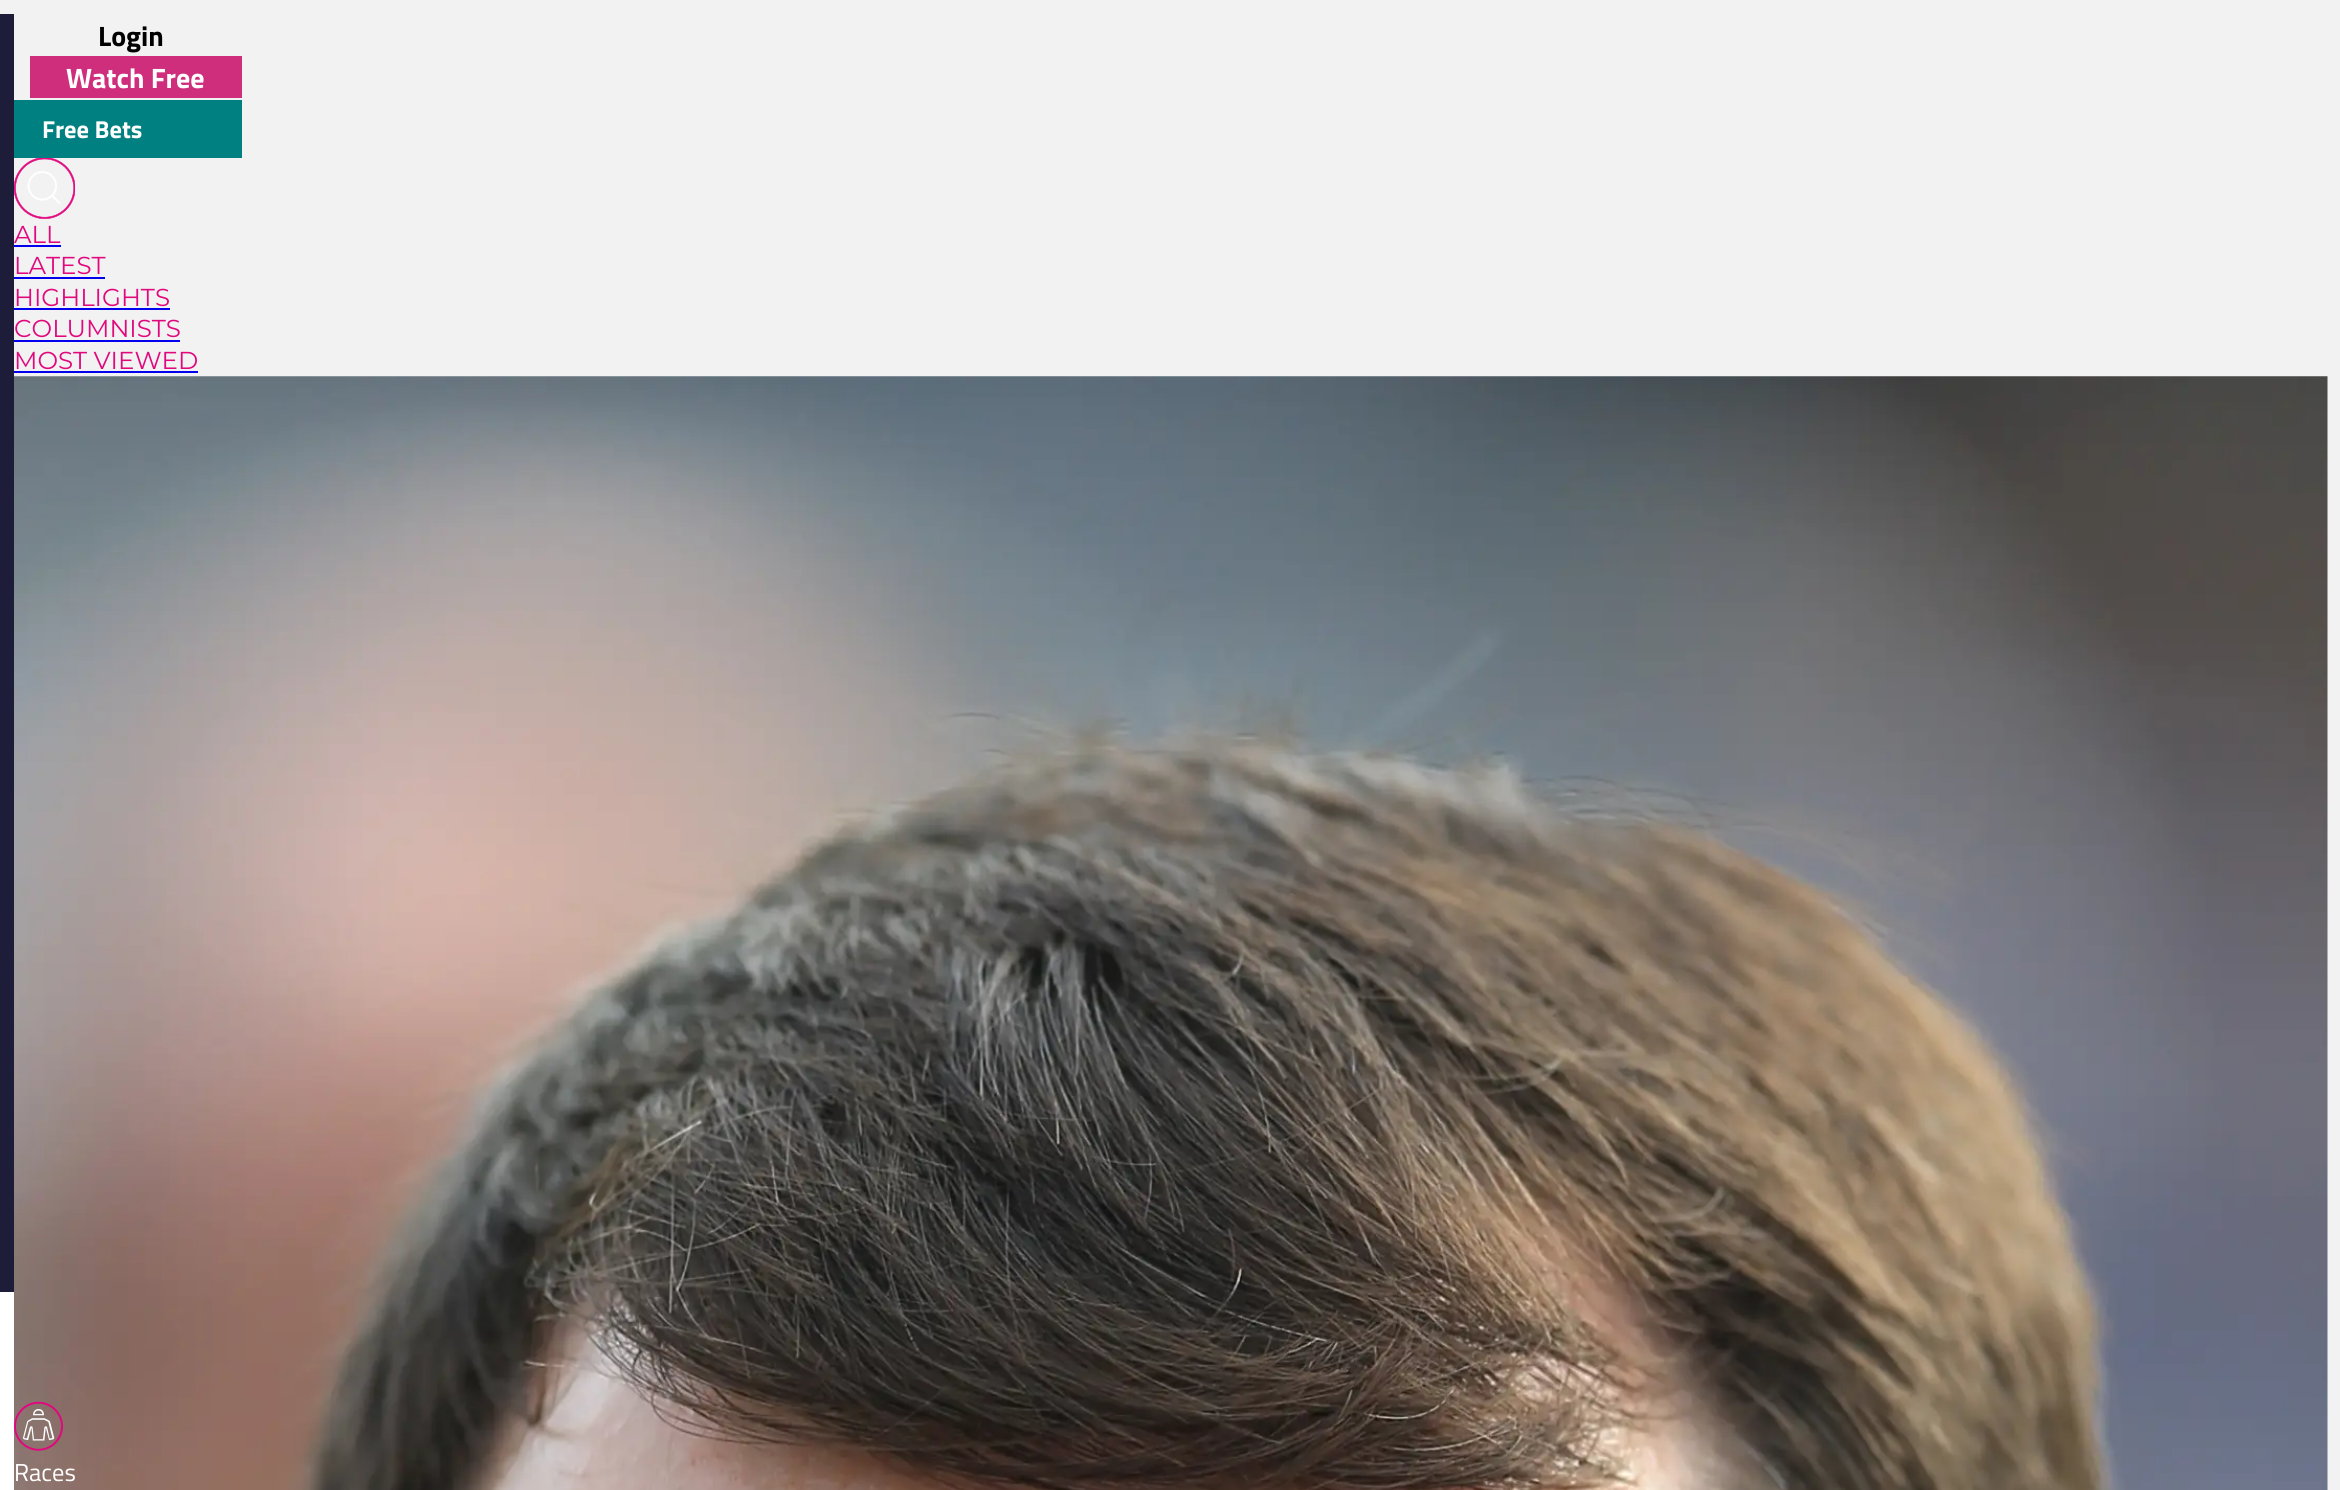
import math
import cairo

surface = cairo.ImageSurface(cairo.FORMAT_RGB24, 2340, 1490)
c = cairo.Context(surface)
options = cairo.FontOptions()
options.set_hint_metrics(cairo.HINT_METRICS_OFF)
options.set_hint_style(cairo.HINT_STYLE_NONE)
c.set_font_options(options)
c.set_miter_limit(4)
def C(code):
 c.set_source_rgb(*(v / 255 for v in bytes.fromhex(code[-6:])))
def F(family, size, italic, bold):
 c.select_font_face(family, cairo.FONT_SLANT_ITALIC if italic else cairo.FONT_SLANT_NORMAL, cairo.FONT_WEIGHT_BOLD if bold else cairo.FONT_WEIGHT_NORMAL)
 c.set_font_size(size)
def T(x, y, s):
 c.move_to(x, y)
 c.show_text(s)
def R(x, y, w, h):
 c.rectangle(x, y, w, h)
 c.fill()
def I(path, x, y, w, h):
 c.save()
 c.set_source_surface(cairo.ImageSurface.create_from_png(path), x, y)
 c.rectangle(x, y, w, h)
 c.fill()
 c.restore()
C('f2f2f2')
c.paint()
C('ffffff')
R(0,1292,14,198)
C('1d1c39')
R(0,14,14,1278)
I('1.png',14,376,2314,1114)
F('Titillium Web',28,0,1)
C('000000')
T(98,46,'Login')
C('ce2e7c')
R(30,56,212,42)
C('ffffff')
T(66,88,'Watch Free')
C('f7f7f7')
R(14,98,2,1)
C('008080')
R(14,100,228,58)
F('Titillium Web',24.5,0,1)
C('ffffff')
T(42,138,'Free Bets')
I('2.png',14,158,61,61)
F('Montserrat',24.5,0,0)
C('e1087e')
T(14,243,'ALL')
C('0000ee')
R(14,245,47,2)
C('e1087e')
T(14,274,'LATEST')
C('0000ee')
R(14,277,91,2)
C('e1087e')
T(14,306,'HIGHLIGHTS')
C('0000ee')
R(14,308,156,2)
C('e1087e')
T(14,337,'COLUMNISTS')
C('0000ee')
R(14,340,166,2)
C('e1087e')
T(14,369,'MOST VIEWED')
C('0000ee')
R(14,371,184,2)
I('3.png',14,1401,49,50)
F('Titillium Web',24.5,0,0)
C('ffffff')
T(14,1481,'Races')
surface.write_to_png('o.png')
